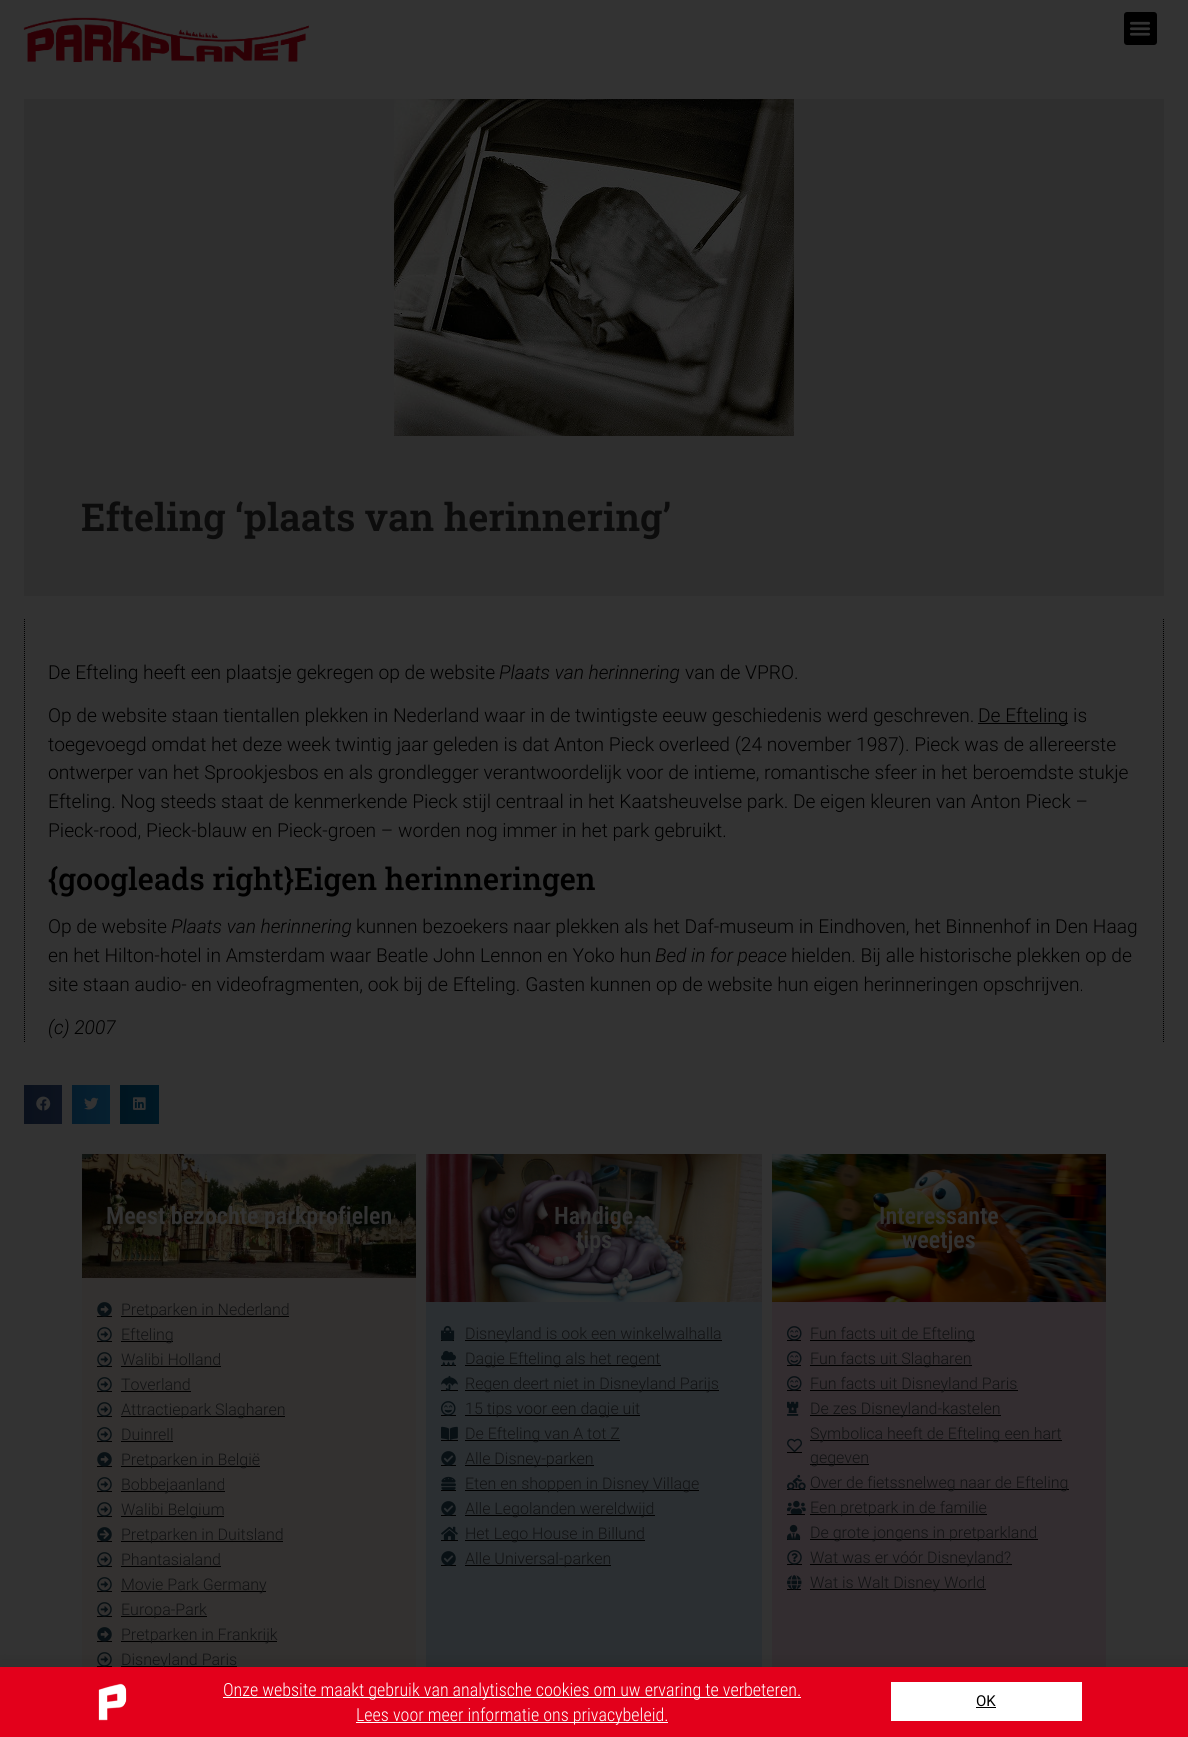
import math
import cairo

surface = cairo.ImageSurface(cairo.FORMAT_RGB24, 1188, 1737)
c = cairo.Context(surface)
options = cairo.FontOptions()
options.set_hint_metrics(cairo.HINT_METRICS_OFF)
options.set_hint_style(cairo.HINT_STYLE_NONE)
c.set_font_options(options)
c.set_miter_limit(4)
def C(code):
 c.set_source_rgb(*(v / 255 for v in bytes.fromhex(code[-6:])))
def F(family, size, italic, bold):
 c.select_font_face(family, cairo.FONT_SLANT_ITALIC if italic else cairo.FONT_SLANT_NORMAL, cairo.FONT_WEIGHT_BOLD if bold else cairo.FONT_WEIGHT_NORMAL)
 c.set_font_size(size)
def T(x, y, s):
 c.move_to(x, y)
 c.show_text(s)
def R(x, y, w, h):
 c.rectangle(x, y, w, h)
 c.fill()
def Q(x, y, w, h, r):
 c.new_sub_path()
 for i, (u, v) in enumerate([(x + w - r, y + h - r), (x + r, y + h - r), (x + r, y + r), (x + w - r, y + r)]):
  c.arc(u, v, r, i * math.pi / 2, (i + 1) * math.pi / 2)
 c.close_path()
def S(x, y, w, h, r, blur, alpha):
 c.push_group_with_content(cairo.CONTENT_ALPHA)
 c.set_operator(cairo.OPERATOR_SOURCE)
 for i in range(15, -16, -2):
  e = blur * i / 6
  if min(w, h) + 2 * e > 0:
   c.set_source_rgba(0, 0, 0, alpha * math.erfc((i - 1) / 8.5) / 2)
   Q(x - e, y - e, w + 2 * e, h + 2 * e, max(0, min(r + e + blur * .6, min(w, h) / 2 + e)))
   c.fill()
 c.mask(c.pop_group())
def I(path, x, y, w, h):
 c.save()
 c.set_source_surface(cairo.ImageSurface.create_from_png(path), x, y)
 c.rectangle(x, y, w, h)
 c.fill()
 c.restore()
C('333333')
c.paint()
I('1.png',23,17,286,46)
C('000000')
Q(1124,12,33,33,3)
c.fill()
I('2.png',1129,21,22,15)
C('2f2f2f')
R(24,99,1140,497)
I('3.png',394,99,400,337)
F('Roboto Slab SemiBold',38.4,0,0)
C('0c0c0c')
T(81,531,'Efteling ‘plaats van herinnering’')
c.new_path()
c.move_to(1163.5,619)
c.line_to(1163.5,1043)
C('000000')
c.set_line_width(1)
c.set_dash([1,1])
c.stroke()
c.new_path()
c.move_to(24.5,619)
c.line_to(24.5,1043)
c.stroke()
F('Roboto Light',19.2,0,0)
T(48,679,'De Efteling heeft een plaatsje gekregen op de website')
F('Roboto Light',19.2,1,0)
T(499,679,'Plaats van herinnering')
F('Roboto Light',19.2,0,0)
T(685,679,'van de VPRO.')
T(48,722,'Op de website staan tientallen plekken in Nederland waar in de twintigste eeuw geschiedenis werd geschreven.')
R(978,723,90,1)
T(978,722,'De Efteling is')
T(48,751,'toegevoegd omdat het deze week twintig jaar geleden is dat Anton Pieck overleed (24 november 1987). Pieck was de allereerste')
T(48,779,'ontwerper van het Sprookjesbos en als grondlegger verantwoordelijk voor de intieme, romantische sfeer in het beroemdste stukje')
T(48,808,'Efteling. Nog steeds staat de kenmerkende Pieck stijl centraal in het Kaatsheuvelse park. De eigen kleuren van Anton Pieck –')
T(48,837,'Pieck-rood, Pieck-blauw en Pieck-groen – worden nog immer in het park gebruikt.')
F('Roboto Slab Medium',30.75,0,0)
T(48,890,'{googleads right}Eigen herinneringen')
F('Roboto Light',19.2,0,0)
T(48,933,'Op de website')
F('Roboto Light',19.2,1,0)
T(171,933,'Plaats van herinnering')
F('Roboto Light',19.2,0,0)
T(356,933,'kunnen bezoekers naar plekken als het Daf-museum in Eindhoven, het Binnenhof in Den Haag')
T(48,962,'en het Hilton-hotel in Amsterdam waar Beatle John Lennon en Yoko hun')
F('Roboto Light',19.2,1,0)
T(655,962,'Bed in for peace')
F('Roboto Light',19.2,0,0)
T(791,962,'hielden. Bij alle historische plekken op de')
T(48,991,'site staan audio- en videofragmenten, ook bij de Efteling. Gasten kunnen op de website hun eigen herinneringen opschrijven.')
F('Roboto Light',19.2,1,0)
T(48,1034,'(c) 2007')
gradient = cairo.LinearGradient(24,1105,62,1105)
gradient.add_color_stop_rgba(0,0.039,0.063,0.106,1)
gradient.add_color_stop_rgba(1,0.047,0.071,0.118,1)
c.set_source(gradient)
R(24,1085,38,39)
I('4.png',36,1096,15,15)
gradient = cairo.LinearGradient(72,1105,110,1105)
gradient.add_color_stop_rgba(0,0.02,0.11,0.169,1)
gradient.add_color_stop_rgba(1,0.024,0.125,0.188,1)
c.set_source(gradient)
R(72,1085,38,39)
I('5.png',84,1097,15,13)
gradient = cairo.LinearGradient(120,1105,159,1105)
gradient.add_color_stop_rgba(0,0,0.082,0.125,1)
gradient.add_color_stop_rgba(1,0,0.094,0.141,1)
c.set_source(gradient)
R(120,1085,39,39)
I('6.png',133,1097,13,13)
C('333130')
R(82,1278,334,389)
I('7.png',82,1154,334,124)
F('Roboto Condensed SemiBold',24,0,0)
C('333333')
T(106,1224,'Meest bezochte parkprofielen')
C('000000')
R(97,1316,15,1)
I('8.png',97,1302,15,15)
R(121,1316,168,1)
F('Roboto Light',16,0,0)
C('111213')
T(121,1315,'Pretparken in Nederland')
C('000000')
R(97,1341,15,1)
I('9.png',97,1327,15,15)
R(121,1341,52,1)
C('111213')
T(121,1340,'Efteling')
C('000000')
R(97,1366,15,1)
I('9.png',97,1352,15,15)
C('111213')
T(121,1365,'Walibi Holland')
C('000000')
R(121,1366,100,1)
R(97,1391,15,1)
I('9.png',97,1377,15,15)
C('111213')
T(121,1390,'Toverland')
C('000000')
R(121,1391,70,1)
R(97,1416,15,1)
I('9.png',97,1402,15,15)
R(121,1416,164,1)
C('111213')
T(121,1415,'Attractiepark Slagharen')
C('000000')
R(97,1441,15,1)
I('9.png',97,1427,15,15)
C('111213')
T(121,1440,'Duinrell')
C('000000')
R(121,1441,52,1)
R(97,1466,15,1)
I('8.png',97,1452,15,15)
R(121,1466,139,1)
C('111213')
T(121,1465,'Pretparken in België')
C('000000')
R(97,1491,15,1)
I('9.png',97,1477,15,15)
R(121,1491,104,1)
C('111213')
T(121,1490,'Bobbejaanland')
C('000000')
R(97,1516,15,1)
I('9.png',97,1502,15,15)
R(121,1516,103,1)
C('111213')
T(121,1515,'Walibi Belgium')
C('000000')
R(97,1541,15,1)
I('10.png',97,1527,15,15)
R(121,1541,162,1)
C('111213')
T(121,1540,'Pretparken in Duitsland')
C('000000')
R(97,1566,15,1)
I('9.png',97,1552,15,15)
C('111213')
T(121,1565,'Phantasialand')
C('000000')
R(121,1566,100,1)
R(97,1591,15,1)
I('9.png',97,1577,15,15)
R(121,1591,145,1)
C('111213')
T(121,1590,'Movie Park Germany')
C('000000')
R(97,1616,15,1)
I('9.png',97,1602,15,15)
R(121,1616,86,1)
C('111213')
T(121,1615,'Europa-Park')
C('000000')
R(97,1641,15,1)
I('8.png',97,1627,15,15)
R(121,1641,156,1)
C('111213')
T(121,1640,'Pretparken in Frankrijk')
C('000000')
R(97,1666,15,1)
I('9.png',97,1652,15,15)
R(121,1666,116,1)
C('111213')
T(121,1665,'Disneyland Paris')
C('2b2f32')
R(426,1302,336,365)
I('11.png',426,1154,336,148)
F('Roboto Condensed SemiBold',24,0,0)
C('333333')
T(554,1224,'Handige')
T(576,1248,'tips')
C('000000')
R(441,1340,13,1)
I('12.png',441,1325,14,16)
R(465,1340,257,1)
F('Roboto Light',16,0,0)
C('111213')
T(465,1339,'Disneyland is ook een winkelwalhalla')
C('000000')
R(441,1365,15,1)
I('13.png',441,1350,15,16)
R(465,1365,196,1)
C('111213')
T(465,1364,'Dagje Efteling als het regent')
C('000000')
R(441,1390,17,1)
I('14.png',441,1375,17,16)
R(465,1390,254,1)
C('111213')
T(465,1389,'Regen deert niet in Disneyland Parijs')
C('000000')
R(441,1415,15,1)
I('15.png',441,1401,15,15)
R(465,1415,175,1)
C('111213')
T(465,1414,'15 tips voor een dagje uit')
I('16.png',441,1426,17,14)
C('000000')
R(441,1440,17,1)
R(465,1440,155,1)
C('111213')
T(465,1439,'De Efteling van A tot Z')
C('000000')
R(441,1465,15,1)
I('17.png',441,1451,15,15)
R(465,1465,129,1)
C('111213')
T(465,1464,'Alle Disney-parken')
I('18.png',441,1476,15,14)
C('000000')
R(441,1490,15,1)
R(465,1490,234,1)
C('111213')
T(465,1489,'Eten en shoppen in Disney Village')
C('000000')
R(441,1515,15,1)
I('17.png',441,1501,15,15)
R(465,1515,190,1)
C('111213')
T(465,1514,'Alle Legolanden wereldwijd')
I('19.png',441,1526,17,14)
C('000000')
R(441,1540,17,1)
R(465,1540,180,1)
C('111213')
T(465,1539,'Het Lego House in Billund')
C('000000')
R(441,1565,15,1)
I('17.png',441,1551,15,15)
R(465,1565,146,1)
C('111213')
T(465,1564,'Alle Universal-parken')
C('332d30')
R(772,1302,334,365)
I('20.png',772,1154,334,148)
F('Roboto Condensed SemiBold',24,0,0)
C('333333')
T(879,1224,'Interessante')
T(902,1248,'weetjes')
C('000000')
R(787,1340,14,1)
I('21.png',787,1326,15,15)
R(810,1340,165,1)
F('Roboto Light',16,0,0)
C('111213')
T(810,1339,'Fun facts uit de Efteling')
C('000000')
R(787,1365,14,1)
I('21.png',787,1351,15,15)
R(810,1365,162,1)
C('111213')
T(810,1364,'Fun facts uit Slagharen')
C('000000')
R(787,1390,14,1)
I('21.png',787,1376,15,15)
R(810,1390,208,1)
C('111213')
T(810,1389,'Fun facts uit Disneyland Paris')
I('22.png',787,1401,12,15)
C('000000')
R(810,1415,191,1)
C('111213')
T(810,1414,'De zes Disneyland-kastelen')
I('23.png',787,1438,15,14)
C('000000')
R(787,1452,15,1)
R(810,1440,252,1)
C('111213')
T(810,1439,'Symbolica heeft de Efteling een hart')
C('000000')
R(810,1464,59,1)
C('111213')
T(810,1463,'gegeven')
C('000000')
R(787,1489,18,1)
I('24.png',787,1474,19,16)
R(810,1489,259,1)
C('111213')
T(810,1488,'Over de fietssnelweg naar de Efteling')
I('25.png',787,1500,19,14)
C('000000')
R(787,1514,18,1)
R(810,1514,177,1)
C('111213')
T(810,1513,'Een pretpark in de familie')
C('000000')
R(787,1539,13,1)
I('26.png',787,1524,14,16)
R(810,1539,228,1)
C('111213')
T(810,1538,'De grote jongens in pretparkland')
C('000000')
R(787,1564,15,1)
I('27.png',787,1550,15,15)
R(810,1564,202,1)
C('111213')
T(810,1563,'Wat was er vóór Disneyland?')
C('000000')
R(787,1589,14,1)
I('28.png',787,1575,15,15)
R(810,1589,176,1)
C('111213')
T(810,1588,'Wat is Walt Disney World')
C('000000')
S(-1,1672,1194,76,0,11.5,.2)
C('e3001b')
R(0,1667,1188,70)
I('29.png',98,1683,29,38)
C('ffffff')
R(223,1697,578,1)
F('Roboto Condensed Light',18,0,0)
T(223,1696,'Onze website maakt gebruik van analytische cookies om uw ervaring te verbeteren.')
R(356,1722,312,1)
T(356,1721,'Lees voor meer informatie ons privacybeleid.')
R(891,1682,191,39)
F('Roboto',15,0,0)
C('000000')
T(976,1706,'OK')
R(976,1707,20,1)
surface.write_to_png('o.png')
